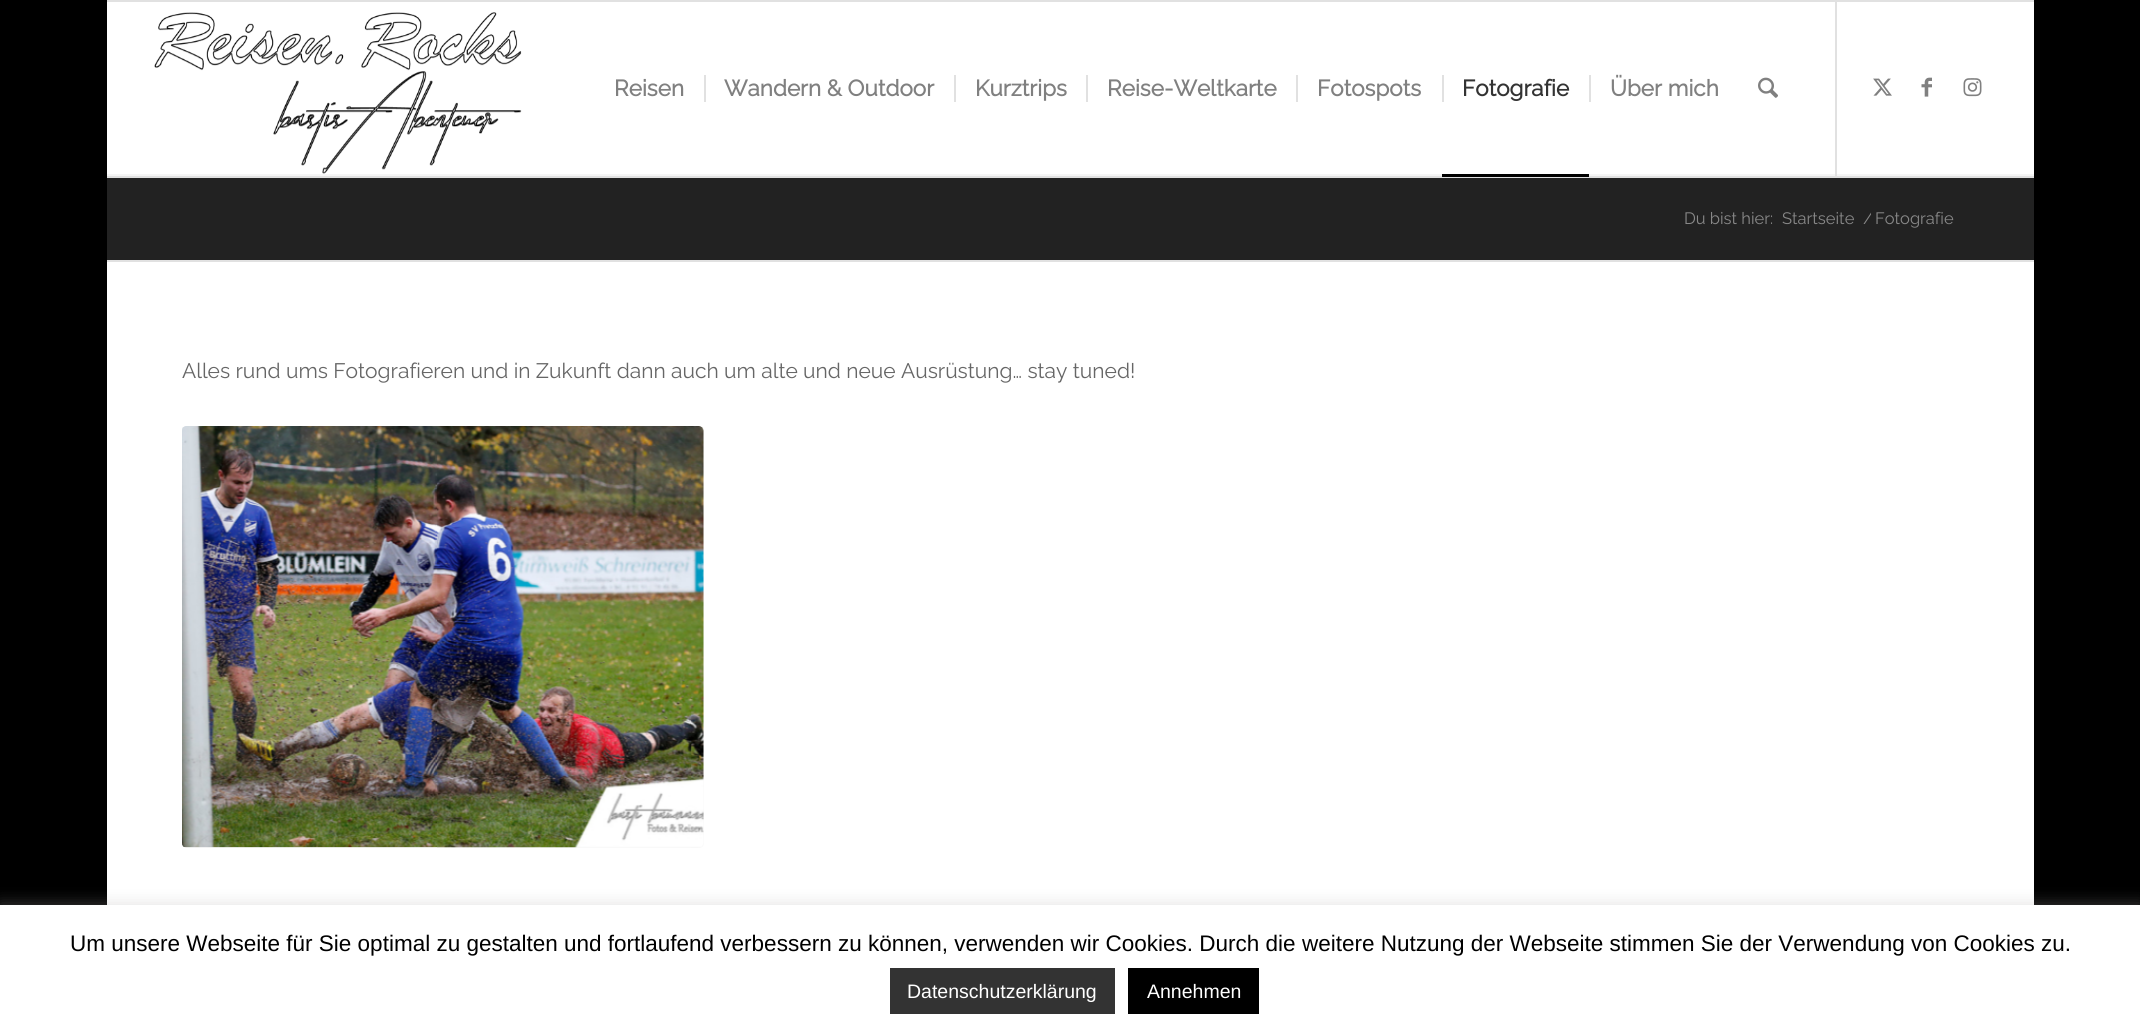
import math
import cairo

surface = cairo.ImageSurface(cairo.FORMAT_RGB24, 2140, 1031)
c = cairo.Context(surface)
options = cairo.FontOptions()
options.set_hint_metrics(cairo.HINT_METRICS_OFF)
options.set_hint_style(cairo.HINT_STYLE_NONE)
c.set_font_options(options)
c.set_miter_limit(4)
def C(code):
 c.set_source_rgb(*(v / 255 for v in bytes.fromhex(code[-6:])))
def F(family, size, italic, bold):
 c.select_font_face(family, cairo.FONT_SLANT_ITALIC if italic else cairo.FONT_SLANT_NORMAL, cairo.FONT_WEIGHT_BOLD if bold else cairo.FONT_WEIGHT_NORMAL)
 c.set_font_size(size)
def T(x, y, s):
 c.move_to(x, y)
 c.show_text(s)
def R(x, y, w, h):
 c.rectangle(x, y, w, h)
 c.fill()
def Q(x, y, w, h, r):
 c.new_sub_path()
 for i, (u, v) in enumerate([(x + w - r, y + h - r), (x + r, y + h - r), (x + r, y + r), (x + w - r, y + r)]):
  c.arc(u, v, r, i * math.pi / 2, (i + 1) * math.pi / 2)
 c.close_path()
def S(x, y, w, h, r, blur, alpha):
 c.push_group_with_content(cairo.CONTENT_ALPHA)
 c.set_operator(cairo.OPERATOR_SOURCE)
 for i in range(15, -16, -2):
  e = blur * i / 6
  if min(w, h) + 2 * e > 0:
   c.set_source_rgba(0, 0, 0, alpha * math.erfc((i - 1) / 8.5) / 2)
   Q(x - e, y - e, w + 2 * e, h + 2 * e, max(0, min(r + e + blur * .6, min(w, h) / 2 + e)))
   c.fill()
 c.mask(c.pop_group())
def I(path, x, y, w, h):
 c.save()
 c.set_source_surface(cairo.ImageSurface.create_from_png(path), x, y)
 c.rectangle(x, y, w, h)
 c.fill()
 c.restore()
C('000000')
c.paint()
C('e1e1e1')
R(107,0,1927,2)
R(107,176,1927,2)
C('ffffff')
R(107,2,1927,172)
I('1.png',154,12,368,162)
C('f5f5f5')
R(107,174,1927,2)
C('e1e1e1')
R(1835,2,2,174)
F('Raleway',22.5,0,1)
C('808080')
T(614,96,'Reisen')
T(724,96,'Wandern & Outdoor')
C('e1e1e1')
R(704,75,2,27)
C('808080')
T(975,96,'Kurztrips')
C('e1e1e1')
R(954,75,2,27)
C('808080')
T(1107,96,'Reise-Weltkarte')
C('e1e1e1')
R(1086,75,2,27)
C('808080')
T(1317,96,'Fotospots')
C('e1e1e1')
R(1296,75,2,27)
C('333333')
T(1462,96,'Fotografie')
C('e1e1e1')
R(1442,75,2,27)
C('000000')
R(1442,174,147,3)
C('808080')
T(1610,96,'Über mich')
C('e1e1e1')
R(1589,75,2,27)
I('2.png',1758,77,20,21)
I('3.png',1873,78,19,18)
I('4.png',1921,77,11,20)
I('5.png',1963,78,19,19)
C('ffffff')
R(107,262,1927,643)
C('222222')
R(107,178,1927,82)
F('Raleway Thin',16.5,0,0)
C('888888')
T(1684,224,'Du bist hier:')
T(1782,224,'Startseite')
c.save()
c.rectangle(1859,207,12,23)
c.clip()
T(1863,224,'/')
c.restore()
T(1875,224,'Fotografie')
C('e1e1e1')
R(107,260,1927,2)
F('Raleway Thin',21,0,0)
C('666666')
T(182,378,'Alles rund ums Fotografieren und in Zukunft dann auch um alte und neue Ausrüstung… stay tuned!')
C('f8f8f8')
Q(182,426,522,422,5)
c.fill()
I('6.png',182,426,522,422)
C('acabab')
S(0,903,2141,128,0,7.5,.3)
C('ffffff')
R(0,905,2140,126)
F('Liberation Sans',22.5,0,0)
C('000000')
T(70,951,'Um unsere Webseite für Sie optimal zu gestalten und fortlaufend verbessern zu können, verwenden wir Cookies. Durch die weitere Nutzung der Webseite stimmen Sie der Verwendung von Cookies zu.')
C('333333')
R(890,968,225,46)
F('Liberation Sans',19.5,0,0)
C('ffffff')
T(907,998,'Datenschutzerklärung')
C('000000')
R(1128,968,131,46)
C('ffffff')
T(1147,998,'Annehmen')
surface.write_to_png('o.png')
